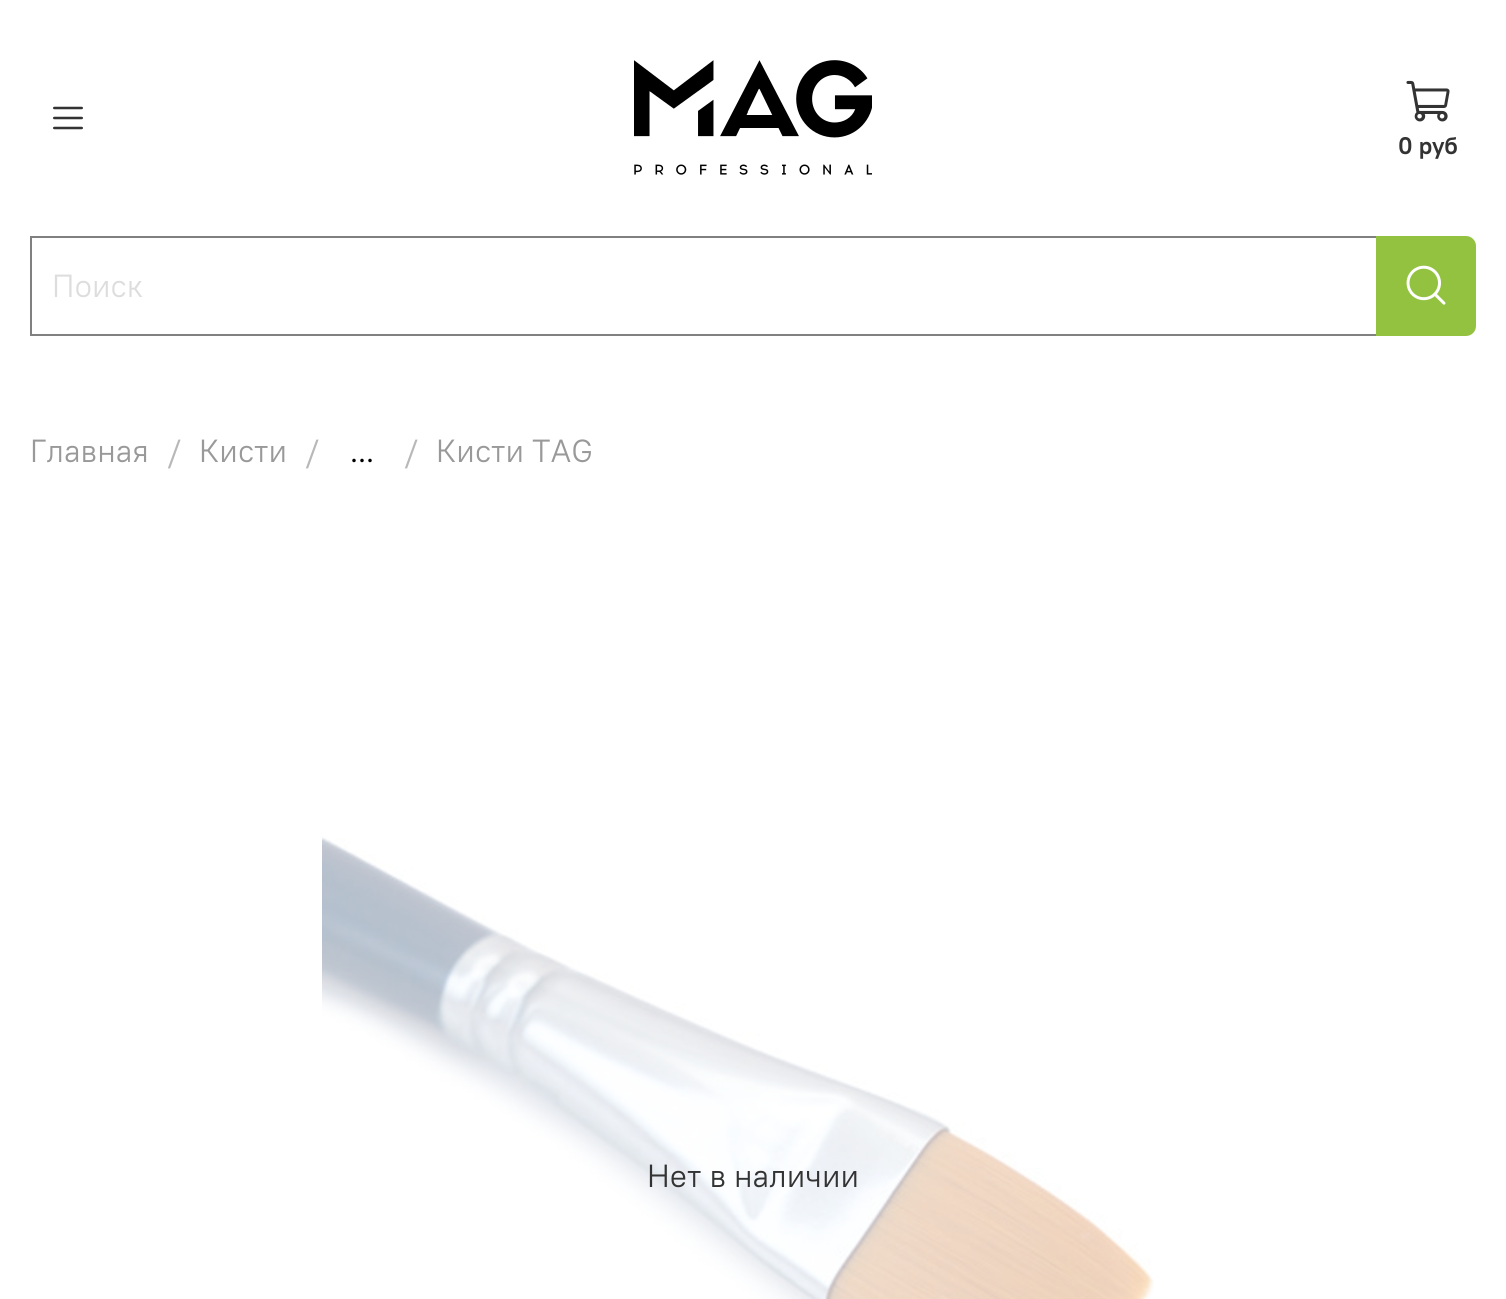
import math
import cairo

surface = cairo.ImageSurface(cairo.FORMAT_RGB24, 1506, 1299)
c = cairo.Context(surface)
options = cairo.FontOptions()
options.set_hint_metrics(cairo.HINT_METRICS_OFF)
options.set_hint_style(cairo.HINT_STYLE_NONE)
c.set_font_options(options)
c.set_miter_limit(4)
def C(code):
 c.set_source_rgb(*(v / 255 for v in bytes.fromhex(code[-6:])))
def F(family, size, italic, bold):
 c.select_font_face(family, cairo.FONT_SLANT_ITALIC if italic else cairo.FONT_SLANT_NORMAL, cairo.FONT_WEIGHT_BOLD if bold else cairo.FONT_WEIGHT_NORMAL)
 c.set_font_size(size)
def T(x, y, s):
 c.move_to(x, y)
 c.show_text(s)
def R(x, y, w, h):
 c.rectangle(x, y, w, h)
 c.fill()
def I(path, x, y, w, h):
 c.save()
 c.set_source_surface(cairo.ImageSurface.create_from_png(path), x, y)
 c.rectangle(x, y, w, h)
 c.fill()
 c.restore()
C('ffffff')
c.paint()
I('1.png',53,106,30,24)
I('2.png',634,60,238,115)
I('3.png',1406,80,44,42)
F('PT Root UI',24,0,1)
C('333333')
T(1398,154,'0 руб')
C('808080')
R(30,236,1346,2)
R(30,334,1346,2)
R(30,236,2,100)
F('PT Root UI',32,0,0)
C('dddddd')
T(52,297,'Поиск')
C('93c241')
c.new_path()
c.move_to(1376,236)
c.line_to(1466,236)
c.curve_to(1471.5,236,1476,240.5,1476,246)
c.line_to(1476,326)
c.curve_to(1476,331.5,1471.5,336,1466,336)
c.line_to(1376,336)
c.close_path()
c.fill()
I('4.png',1406,265,40,40)
C('999999')
T(30,462,'Главная')
C('b8b8b8')
T(167,462,'/')
C('999999')
T(199,462,'Кисти')
C('b8b8b8')
T(305,462,'/')
C('000000')
T(350,462,'...')
C('b8b8b8')
T(404,462,'/')
C('999999')
T(436,462,'Кисти TAG')
I('5.png',322,837,832,462)
C('333333')
T(647,1187,'Нет в наличии')
surface.write_to_png('o.png')
